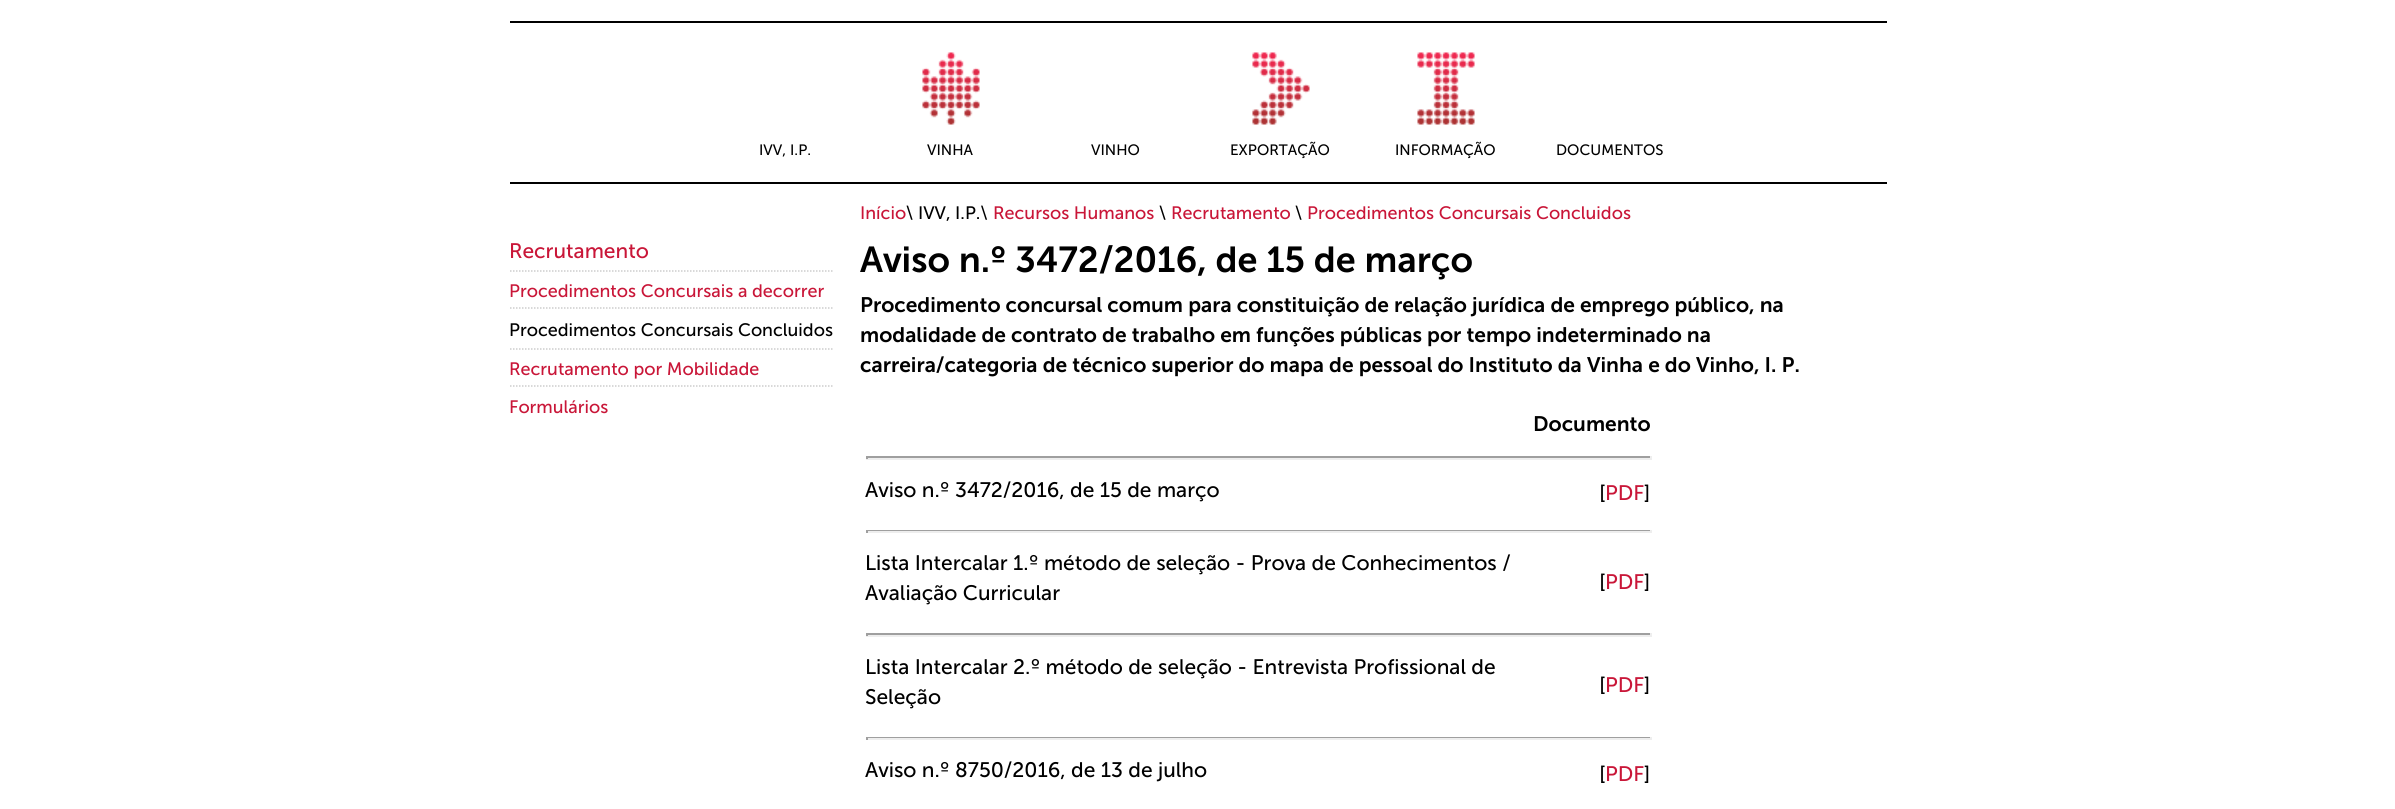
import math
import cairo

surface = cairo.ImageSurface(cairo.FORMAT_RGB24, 2395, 809)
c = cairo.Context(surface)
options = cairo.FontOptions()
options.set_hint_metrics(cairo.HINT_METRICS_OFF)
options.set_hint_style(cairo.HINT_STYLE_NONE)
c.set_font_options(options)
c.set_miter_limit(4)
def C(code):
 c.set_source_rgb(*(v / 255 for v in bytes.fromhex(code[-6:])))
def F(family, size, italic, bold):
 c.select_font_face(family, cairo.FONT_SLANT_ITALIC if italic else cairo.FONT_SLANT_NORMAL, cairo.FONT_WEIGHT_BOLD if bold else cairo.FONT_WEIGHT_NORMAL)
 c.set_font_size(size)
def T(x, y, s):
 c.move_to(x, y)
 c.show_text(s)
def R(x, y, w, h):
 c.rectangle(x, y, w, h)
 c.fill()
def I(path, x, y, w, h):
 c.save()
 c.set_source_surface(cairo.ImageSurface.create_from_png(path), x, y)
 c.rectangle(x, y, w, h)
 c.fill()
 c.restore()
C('ffffff')
c.paint()
C('000000')
R(510,21,1377,2)
R(510,182,1377,2)
F('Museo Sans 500',15,0,0)
T(759,155,'IVV, I.P.')
I('1.png',922,52,58,73)
T(927,155,'VINHA')
T(1091,155,'VINHO')
I('2.png',1252,52,58,73)
T(1230,155,'EXPORTAÇÃO')
I('3.png',1417,52,58,73)
T(1395,155,'INFORMAÇÃO')
T(1556,155,'DOCUMENTOS')
F('Museo Sans 500',21,0,0)
C('c91638')
T(509,258,'Recrutamento')
c.new_path()
c.move_to(510,271)
c.line_to(834,271)
C('cccccc')
c.set_line_width(1.5)
c.set_dash([1.5,1.5])
c.stroke()
F('Museo Sans 500',18,0,0)
C('c91638')
T(509,297,'Procedimentos Concursais a decorrer')
c.new_path()
c.move_to(510,308)
c.line_to(834,308)
C('cccccc')
c.stroke()
C('000000')
T(509,336,'Procedimentos Concursais Concluidos')
c.new_path()
c.move_to(510,349)
c.line_to(834,349)
C('cccccc')
c.stroke()
C('c91638')
T(509,375,'Recrutamento por Mobilidade')
c.new_path()
c.move_to(510,386)
c.line_to(834,386)
C('cccccc')
c.stroke()
C('c91638')
T(509,413,'Formulários')
T(860,219,'Início')
C('000000')
T(906,219,'\\ IVV, I.P.\\')
C('c91638')
T(993,219,'Recursos Humanos')
C('000000')
T(1159,219,'\\')
C('c91638')
T(1171,219,'Recrutamento')
C('000000')
T(1295,219,'\\')
C('c91638')
T(1307,219,'Procedimentos Concursais Concluidos')
F('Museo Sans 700 SemiBold',36,0,0)
C('000000')
T(860,272,'Aviso n.º 3472/2016, de 15 de março')
F('Museo Sans 700 SemiBold',21,0,0)
T(860,312,'Procedimento concursal comum para constituição de relação jurídica de emprego público, na')
T(860,342,'modalidade de contrato de trabalho em funções públicas por tempo indeterminado na')
T(860,372,'carreira/categoria de técnico superior do mapa de pessoal do Instituto da Vinha e do Vinho, I. P.')
T(1533,431,'Documento')
C('9f9f9f')
R(866,456,786,2)
C('eeeeee')
R(1650,456,2,3)
R(866,458,786,2)
C('9f9f9f')
R(866,456,2,3)
F('Museo Sans 500',21,0,0)
C('000000')
T(865,497,'Aviso n.º 3472/2016, de 15 de março')
T(1599,500,'[')
C('c91638')
T(1605,500,'PDF')
C('000000')
T(1644,500,']')
C('9f9f9f')
R(866,530,786,1)
C('eeeeee')
R(1650,530,2,3)
R(866,531,786,2)
C('9f9f9f')
R(866,530,2,3)
C('000000')
T(865,570,'Lista Intercalar 1.º método de seleção - Prova de Conhecimentos /')
T(865,600,'Avaliação Curricular')
T(1599,589,'[')
C('c91638')
T(1605,589,'PDF')
C('000000')
T(1644,589,']')
C('9f9f9f')
R(866,633,786,2)
C('eeeeee')
R(1650,633,2,3)
R(866,635,786,2)
C('9f9f9f')
R(866,633,2,3)
C('000000')
T(865,674,'Lista Intercalar 2.º método de seleção - Entrevista Profissional de')
T(865,704,'Seleção')
T(1599,692,'[')
C('c91638')
T(1605,692,'PDF')
C('000000')
T(1644,692,']')
C('9f9f9f')
R(866,737,786,1)
C('eeeeee')
R(1650,737,2,3)
R(866,738,786,2)
C('9f9f9f')
R(866,737,2,3)
C('000000')
T(865,777,'Aviso n.º 8750/2016, de 13 de julho')
T(1599,781,'[')
C('c91638')
T(1605,781,'PDF')
C('000000')
T(1644,781,']')
surface.write_to_png('o.png')
